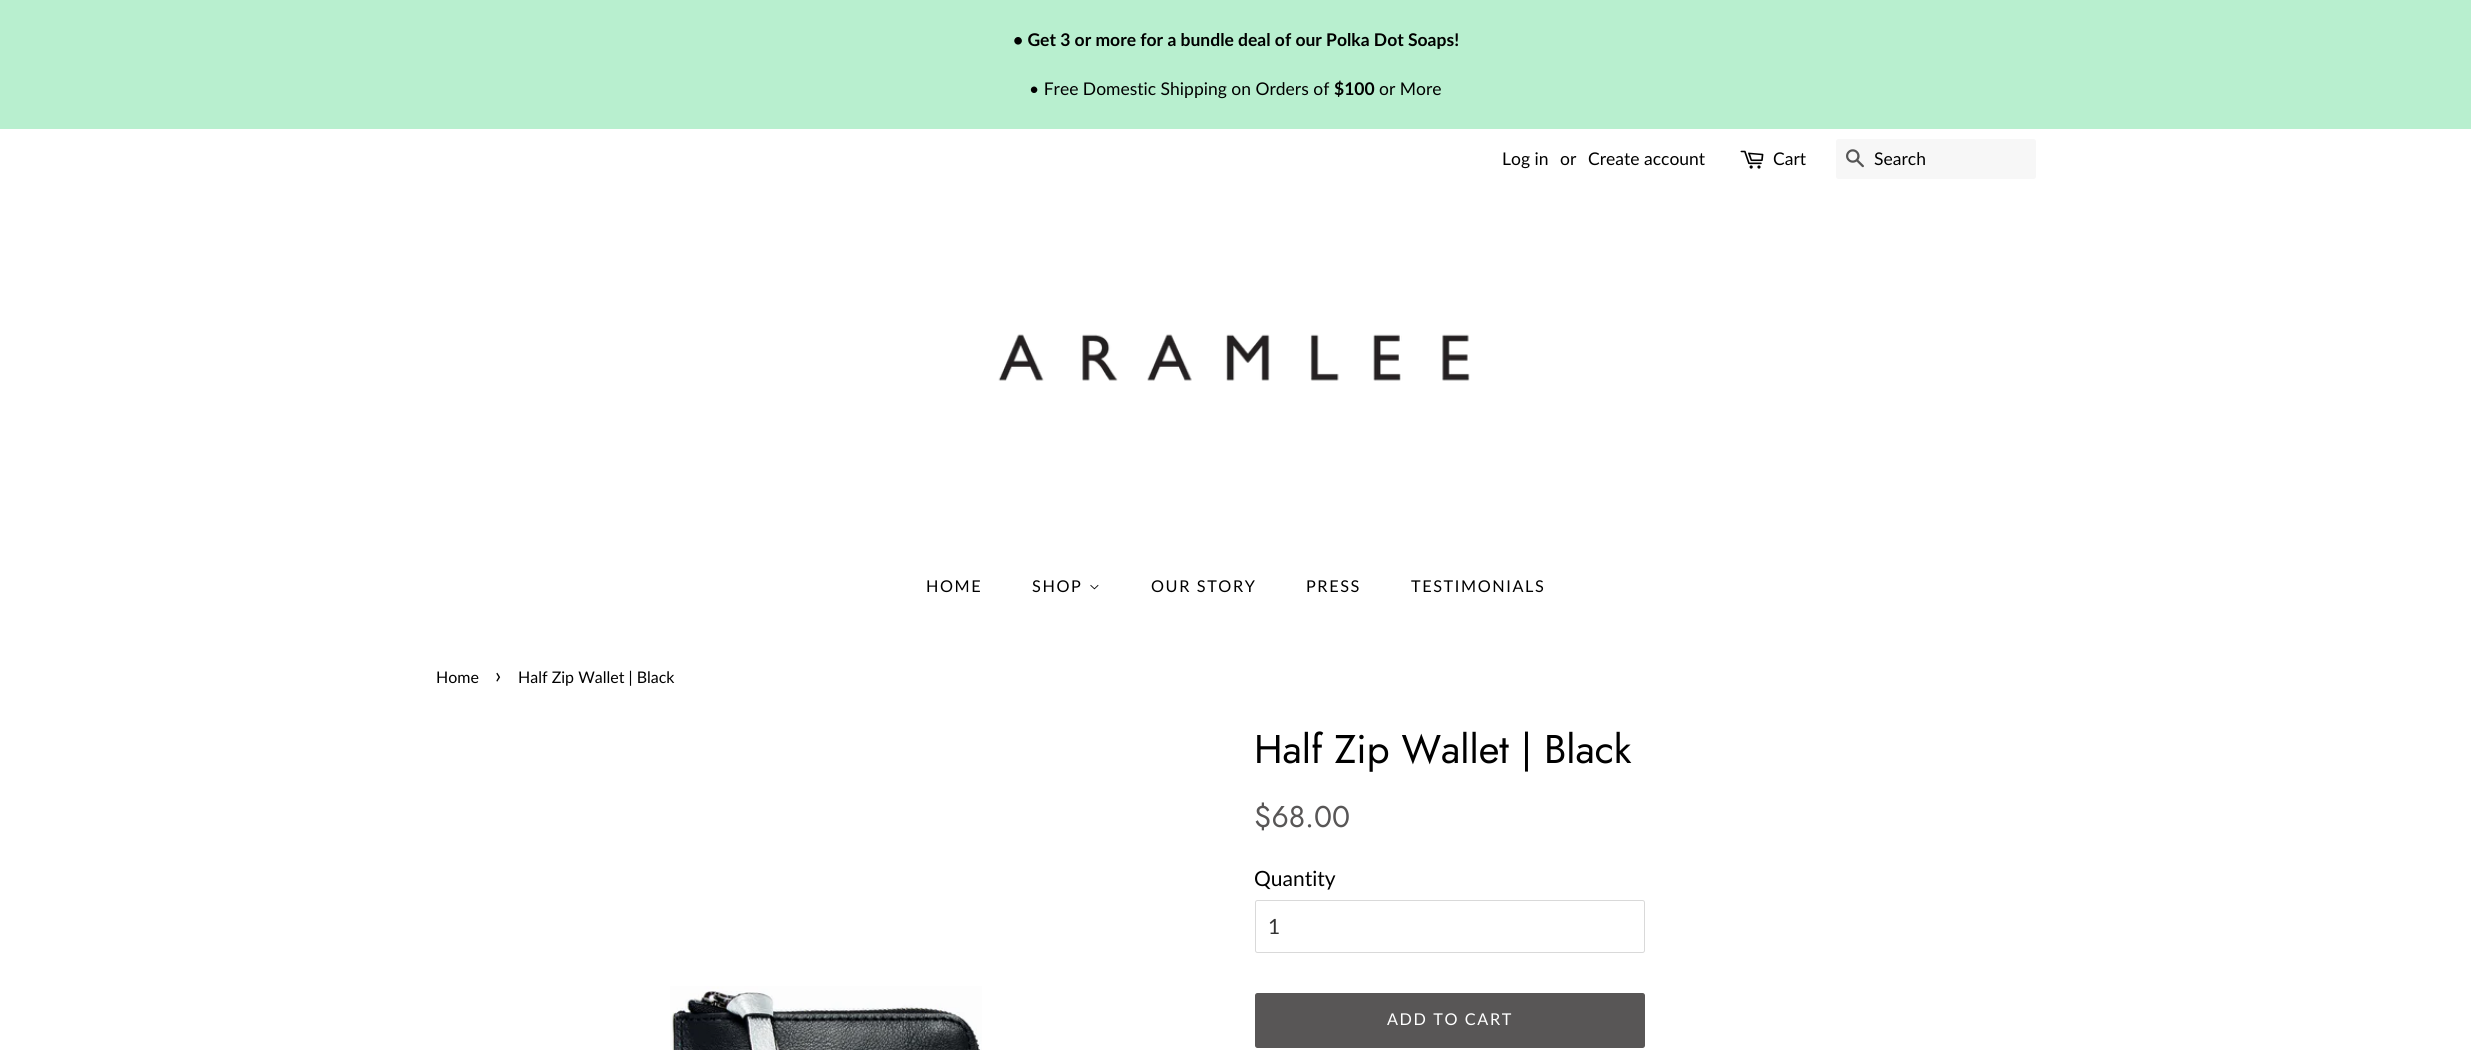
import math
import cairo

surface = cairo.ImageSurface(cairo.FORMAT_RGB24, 2471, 1050)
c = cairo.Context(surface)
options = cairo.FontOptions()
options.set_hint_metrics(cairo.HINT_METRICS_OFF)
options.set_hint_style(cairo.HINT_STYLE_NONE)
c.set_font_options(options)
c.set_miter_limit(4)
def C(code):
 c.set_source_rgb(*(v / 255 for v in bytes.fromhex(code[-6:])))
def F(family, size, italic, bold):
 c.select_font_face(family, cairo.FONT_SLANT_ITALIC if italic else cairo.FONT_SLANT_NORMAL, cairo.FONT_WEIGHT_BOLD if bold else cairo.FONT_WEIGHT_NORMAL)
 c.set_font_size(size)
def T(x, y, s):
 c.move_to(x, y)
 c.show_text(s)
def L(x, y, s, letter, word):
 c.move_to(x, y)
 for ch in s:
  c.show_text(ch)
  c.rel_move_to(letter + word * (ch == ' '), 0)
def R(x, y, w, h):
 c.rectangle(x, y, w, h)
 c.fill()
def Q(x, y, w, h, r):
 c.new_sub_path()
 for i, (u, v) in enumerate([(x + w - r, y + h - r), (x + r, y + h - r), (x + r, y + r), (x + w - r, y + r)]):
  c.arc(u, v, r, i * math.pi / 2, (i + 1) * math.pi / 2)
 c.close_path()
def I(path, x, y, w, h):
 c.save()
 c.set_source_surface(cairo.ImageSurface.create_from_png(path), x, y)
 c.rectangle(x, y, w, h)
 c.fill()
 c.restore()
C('ffffff')
c.paint()
C('b8efcf')
R(0,0,2471,129)
F('Lato',17.5,0,1)
C('000000')
T(1013,46,'• Get 3 or more for a bundle deal of our Polka Dot Soaps!')
F('Lato',17.5,0,0)
T(1029,95,'• Free Domestic Shipping on Orders of')
F('Lato',17.5,0,1)
T(1334,95,'$100')
F('Lato',17.5,0,0)
T(1379,95,'or More')
T(1502,165,'Log in')
T(1560,165,'or')
T(1588,165,'Create account')
I('1.png',1740,150,24,19)
T(1773,165,'Cart')
C('f7f7f7')
Q(1836,139,200,40,2.5)
c.fill()
I('2.png',1846,149,18,19)
C('000000')
T(1874,165,'Search')
I('3.png',998,334,472,47)
F('Lato',16.25,0,0)
L(926,592,'HOME',1.6,0)
L(1032,592,'SHOP',1.6,0)
I('4.png',1090,584,9,6)
L(1151,592,'OUR STORY',1.6,0)
L(1306,592,'PRESS',1.6,0)
L(1411,592,'TESTIMONIALS',1.6,0)
F('Lato',16,0,0)
T(436,683,'Home')
F('Lato',22,0,0)
T(495,683,'›')
F('Lato',16,0,0)
T(518,683,'Half Zip Wallet | Black')
I('5.png',670,986,312,64)
F('Jost',40,0,0)
T(1254,763,'Half Zip Wallet | Black')
F('Jost',30,0,0)
C('585656')
T(1254,827,'$68.00')
F('Lato',21,0,0)
C('000000')
T(1254,886,'Quantity')
Q(1255.5,900.5,389,52,2)
C('d9d9d9')
c.set_line_width(1)
c.stroke()
C('333333')
T(1268,934,'1')
C('585656')
Q(1255,993,390,55,2.5)
c.fill()
F('Lato',16.25,0,0)
C('ffffff')
L(1387,1025,'ADD TO CART',1.6,0)
surface.write_to_png('o.png')
